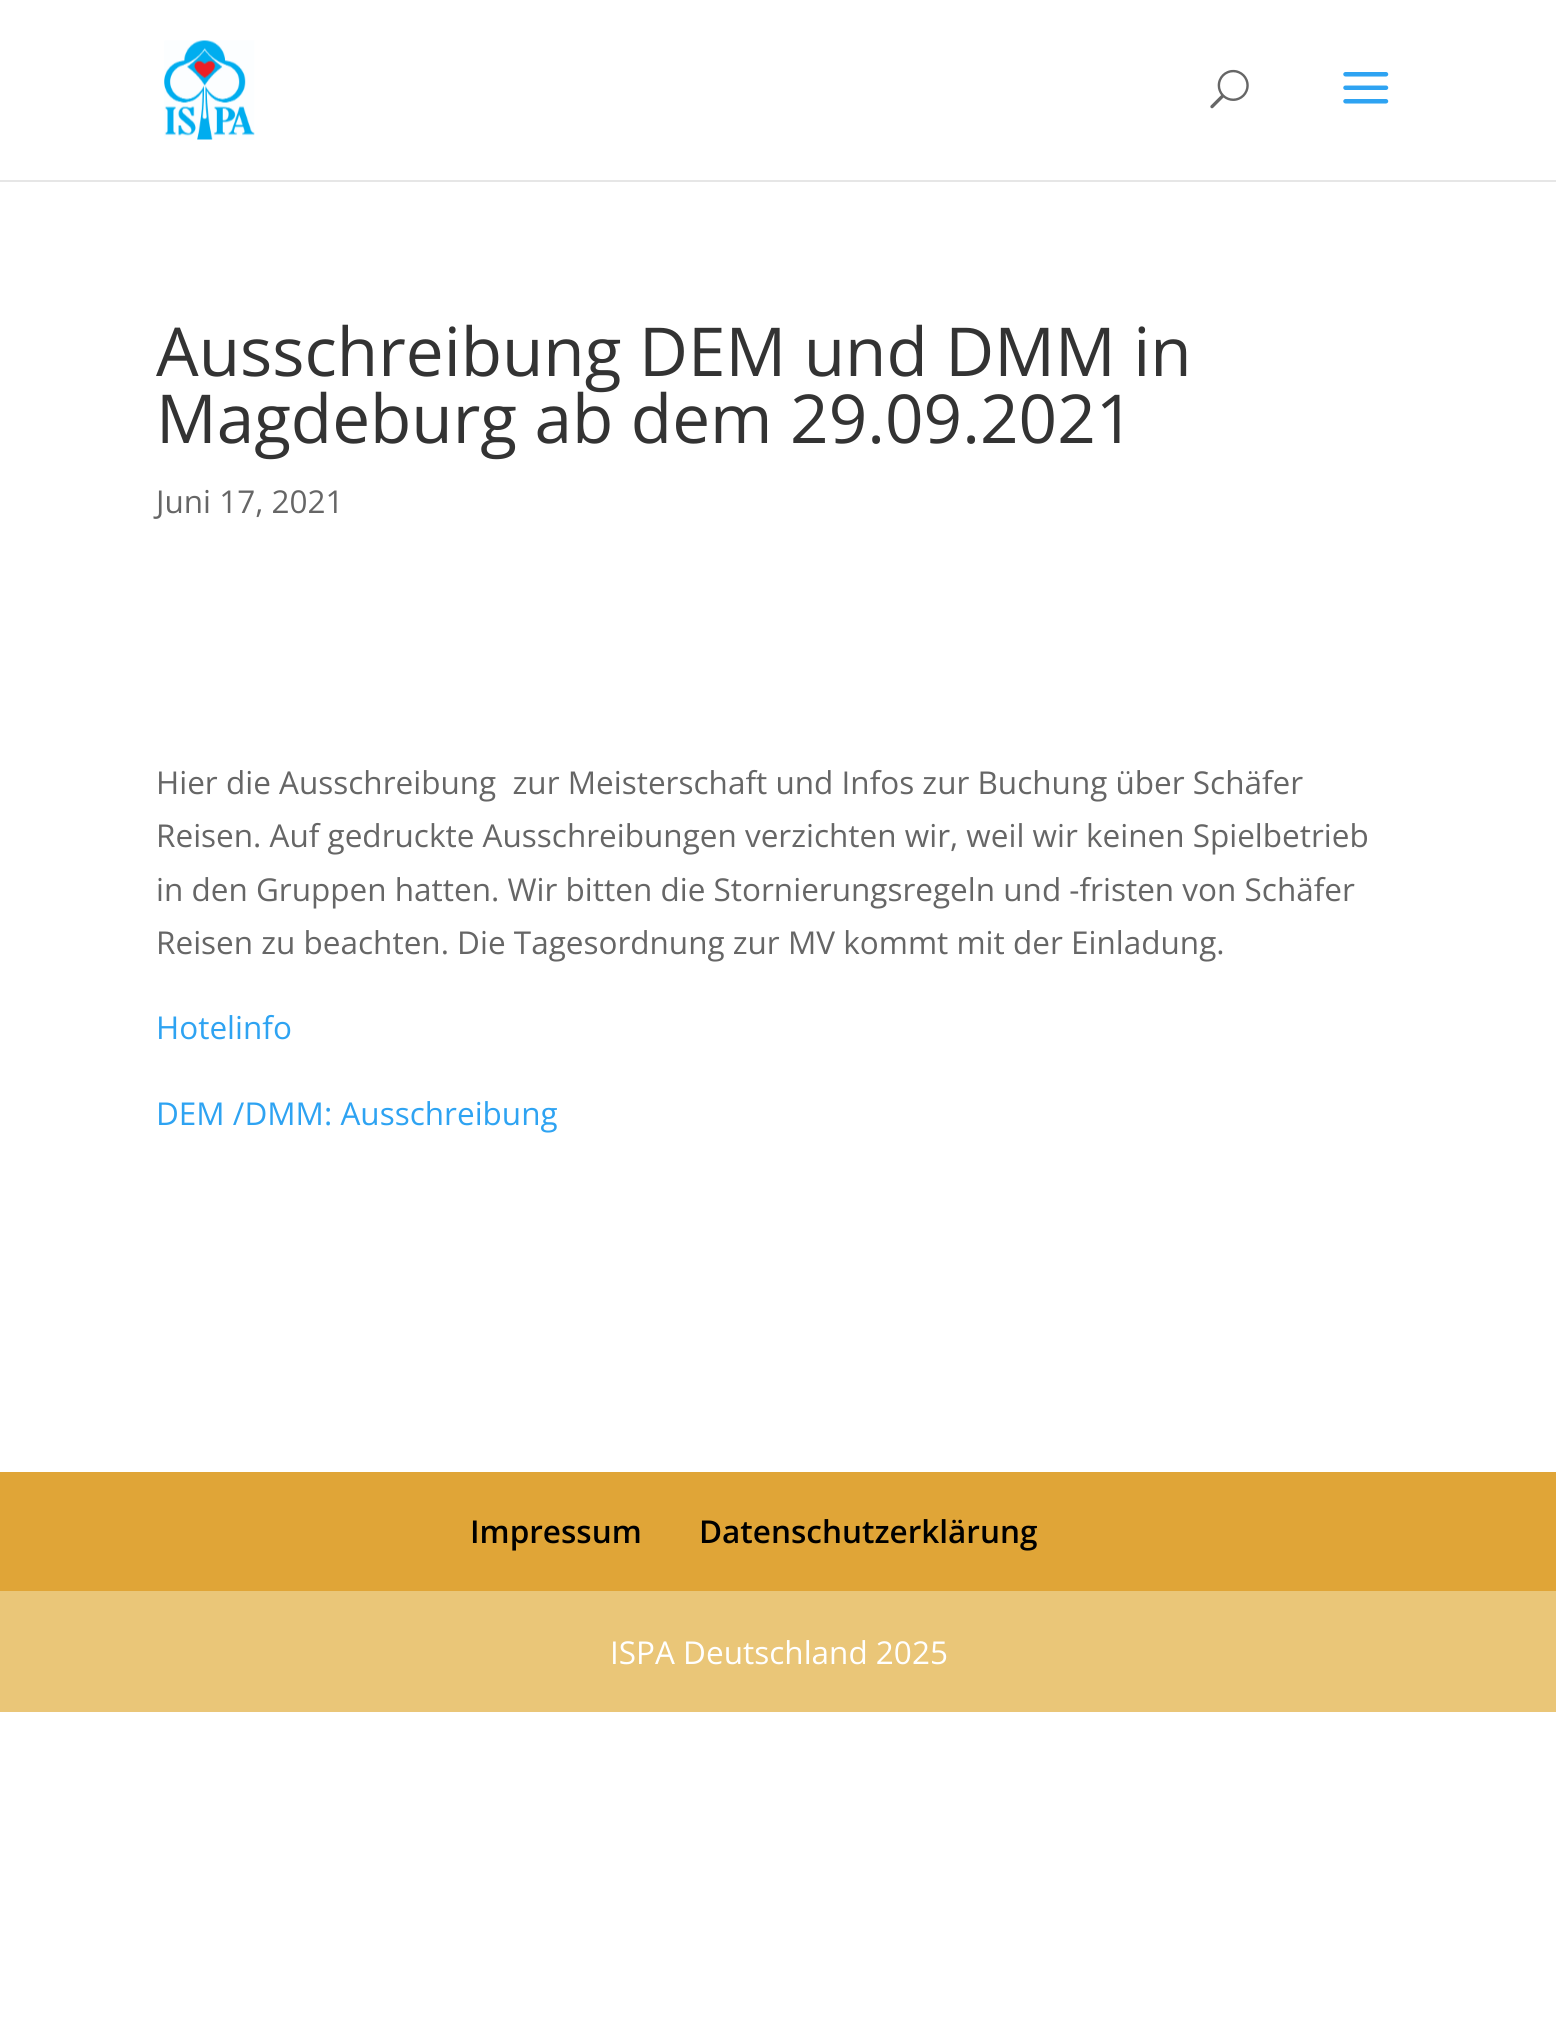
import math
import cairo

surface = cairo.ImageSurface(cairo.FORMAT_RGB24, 1556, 2034)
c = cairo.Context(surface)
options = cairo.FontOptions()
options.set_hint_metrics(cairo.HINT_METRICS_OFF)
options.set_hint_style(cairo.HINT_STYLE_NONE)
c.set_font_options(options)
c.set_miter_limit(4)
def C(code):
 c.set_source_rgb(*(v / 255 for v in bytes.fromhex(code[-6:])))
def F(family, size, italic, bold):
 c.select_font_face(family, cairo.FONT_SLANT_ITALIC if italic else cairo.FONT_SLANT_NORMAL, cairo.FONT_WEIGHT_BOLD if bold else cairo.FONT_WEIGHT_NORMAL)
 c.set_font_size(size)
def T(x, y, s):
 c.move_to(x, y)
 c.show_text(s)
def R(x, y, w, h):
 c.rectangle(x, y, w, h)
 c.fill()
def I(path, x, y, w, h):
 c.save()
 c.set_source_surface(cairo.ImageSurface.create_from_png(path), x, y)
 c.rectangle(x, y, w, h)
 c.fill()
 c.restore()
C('ffffff')
c.paint()
C('e6e6e6')
R(0,180,1556,2)
I('1.png',164,40,91,100)
I('2.png',1210,69,39,40)
I('3.png',1343,72,46,32)
F('Open Sans',67.5,0,0)
C('333333')
T(156,376,'Ausschreibung DEM und DMM in')
T(156,443,'Magdeburg ab dem 29.09.2021')
F('Open Sans',31.5,0,0)
C('666666')
T(156,513,'Juni 17, 2021')
T(156,794,'Hier die Ausschreibung  zur Meisterschaft und Infos zur Buchung über Schäfer')
T(156,847,'Reisen. Auf gedruckte Ausschreibungen verzichten wir, weil wir keinen Spielbetrieb')
T(156,901,'in den Gruppen hatten. Wir bitten die Stornierungsregeln und -fristen von Schäfer')
T(156,954,'Reisen zu beachten. Die Tagesordnung zur MV kommt mit der Einladung.')
C('2ea3f2')
T(156,1039,'Hotelinfo')
T(156,1125,'DEM /DMM: Ausschreibung')
C('e0a537')
R(0,1472,1556,119)
F('Open Sans SemiBold',31.5,0,0)
C('000000')
T(470,1543,'Impressum')
T(699,1543,'Datenschutzerklärung')
C('eac678')
R(0,1591,1556,121)
F('Open Sans',31.5,0,0)
C('ffffff')
T(610,1664,'ISPA Deutschland 2025')
surface.write_to_png('o.png')
